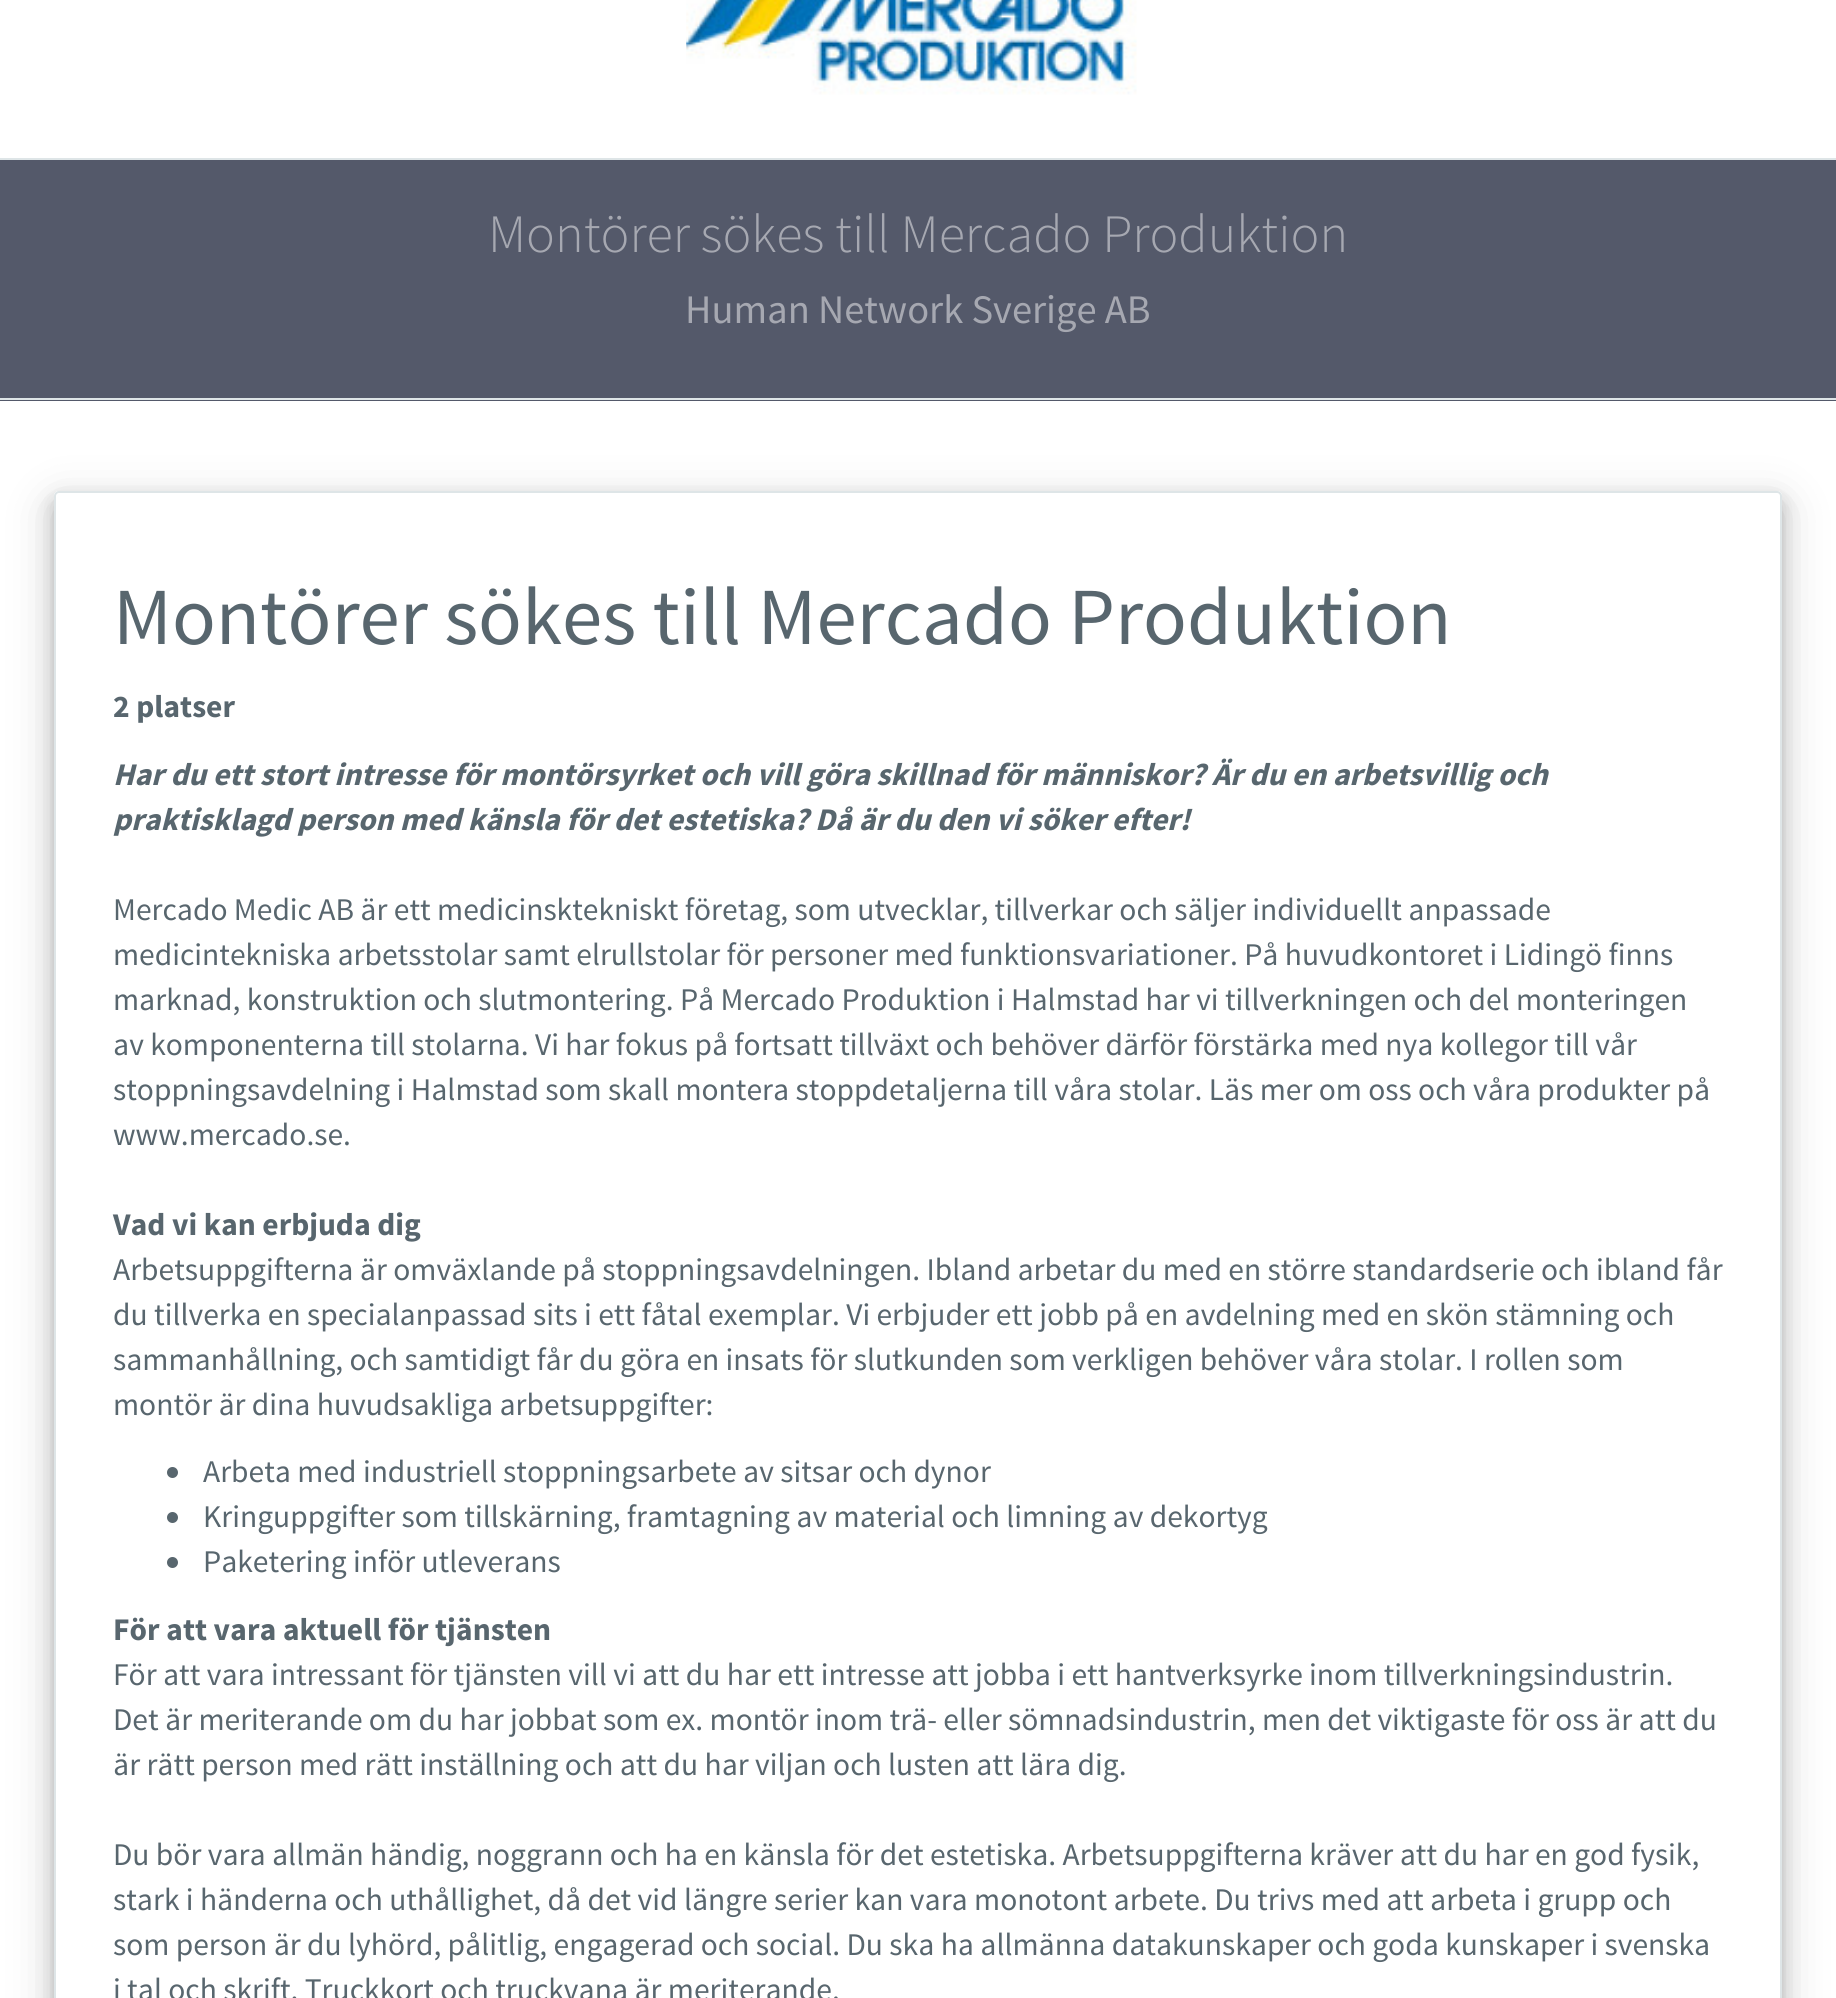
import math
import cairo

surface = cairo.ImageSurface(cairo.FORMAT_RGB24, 1836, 1998)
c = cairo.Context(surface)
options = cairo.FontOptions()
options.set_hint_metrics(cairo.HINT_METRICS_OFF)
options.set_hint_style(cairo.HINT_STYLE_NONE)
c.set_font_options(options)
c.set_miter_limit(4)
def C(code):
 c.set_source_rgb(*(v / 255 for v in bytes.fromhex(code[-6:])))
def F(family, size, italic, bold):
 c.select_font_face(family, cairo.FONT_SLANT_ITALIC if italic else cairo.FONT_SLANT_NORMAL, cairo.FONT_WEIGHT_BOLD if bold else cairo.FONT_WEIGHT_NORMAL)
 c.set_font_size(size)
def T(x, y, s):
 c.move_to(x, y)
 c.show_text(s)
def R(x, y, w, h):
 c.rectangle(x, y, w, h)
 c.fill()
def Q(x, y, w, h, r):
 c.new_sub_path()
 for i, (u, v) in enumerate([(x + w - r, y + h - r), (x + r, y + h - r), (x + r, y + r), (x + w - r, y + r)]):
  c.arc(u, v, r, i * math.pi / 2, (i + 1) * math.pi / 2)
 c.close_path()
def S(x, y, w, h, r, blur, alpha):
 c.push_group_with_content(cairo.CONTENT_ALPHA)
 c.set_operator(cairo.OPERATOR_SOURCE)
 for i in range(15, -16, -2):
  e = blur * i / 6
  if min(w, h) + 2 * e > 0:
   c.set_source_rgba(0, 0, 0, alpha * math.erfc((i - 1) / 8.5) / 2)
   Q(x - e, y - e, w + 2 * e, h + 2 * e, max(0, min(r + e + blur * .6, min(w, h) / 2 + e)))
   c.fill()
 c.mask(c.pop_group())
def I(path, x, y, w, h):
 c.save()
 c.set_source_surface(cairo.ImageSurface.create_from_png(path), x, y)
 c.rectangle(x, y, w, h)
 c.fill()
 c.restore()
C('ffffff')
c.paint()
C('dee5e7')
R(0,158,1836,2)
I('1.png',686,0,451,95)
C('54596a')
R(0,160,1836,241)
C('dee5e7')
R(0,398,1836,2)
F('Source Sans Pro Light',54,0,0)
C('a6a8b1')
T(488,252,'Montörer sökes till Mercado Produktion')
F('Source Sans Pro',40.5,0,0)
T(685,323,'Human Network Sverige AB')
c.save()
c.set_fill_rule(cairo.FILL_RULE_EVEN_ODD)
c.new_path()
c.move_to(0,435)
c.line_to(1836,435)
c.line_to(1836,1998)
c.line_to(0,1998)
c.close_path()
c.move_to(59,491)
c.line_to(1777,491)
c.curve_to(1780,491,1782,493,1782,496)
c.line_to(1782,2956)
c.curve_to(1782,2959,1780,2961,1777,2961)
c.line_to(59,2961)
c.curve_to(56,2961,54,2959,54,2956)
c.line_to(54,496)
c.curve_to(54,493,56,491,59,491)
c.close_path()
c.clip()
C('000000')
S(54,504,1728,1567,5,22.5,.19)
c.restore()
c.save()
c.set_fill_rule(cairo.FILL_RULE_EVEN_ODD)
c.new_path()
c.move_to(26,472)
c.line_to(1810,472)
c.line_to(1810,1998)
c.line_to(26,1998)
c.close_path()
c.move_to(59,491)
c.line_to(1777,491)
c.curve_to(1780,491,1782,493,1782,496)
c.line_to(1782,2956)
c.curve_to(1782,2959,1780,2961,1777,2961)
c.line_to(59,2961)
c.curve_to(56,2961,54,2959,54,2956)
c.line_to(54,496)
c.curve_to(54,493,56,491,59,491)
c.close_path()
c.clip()
C('000000')
S(54,500,1728,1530,5,9,.2)
c.restore()
Q(55,492,1726,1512,4)
C('dee5e7')
c.stroke()
F('Source Sans Pro',81,0,0)
C('58666e')
T(113,644,'Montörer sökes till Mercado Produktion')
F('Source Sans Pro',31.5,0,1)
T(113,717,'2 platser')
F('Source Sans Pro',31.5,1,1)
T(113,785,'Har du ett stort intresse för montörsyrket och vill göra skillnad för människor? Är du en arbetsvillig och')
T(113,830,'praktisklagd person med känsla för det estetiska? Då är du den vi söker efter!')
F('Source Sans Pro',31.5,0,0)
T(113,920,'Mercado Medic AB är ett medicinsktekniskt företag, som utvecklar, tillverkar och säljer individuellt anpassade')
T(113,965,'medicintekniska arbetsstolar samt elrullstolar för personer med funktionsvariationer. På huvudkontoret i Lidingö finns')
T(113,1010,'marknad, konstruktion och slutmontering. På Mercado Produktion i Halmstad har vi tillverkningen och del monteringen')
T(113,1055,'av komponenterna till stolarna. Vi har fokus på fortsatt tillväxt och behöver därför förstärka med nya kollegor till vår')
T(113,1100,'stoppningsavdelning i Halmstad som skall montera stoppdetaljerna till våra stolar. Läs mer om oss och våra produkter på')
T(113,1145,'www.mercado.se.')
F('Source Sans Pro',31.5,0,1)
T(113,1235,'Vad vi kan erbjuda dig')
F('Source Sans Pro',31.5,0,0)
T(113,1280,'Arbetsuppgifterna är omväxlande på stoppningsavdelningen. Ibland arbetar du med en större standardserie och ibland får')
T(113,1325,'du tillverka en specialanpassad sits i ett fåtal exemplar. Vi erbjuder ett jobb på en avdelning med en skön stämning och')
T(113,1370,'sammanhållning, och samtidigt får du göra en insats för slutkunden som verkligen behöver våra stolar. I rollen som')
T(113,1415,'montör är dina huvudsakliga arbetsuppgifter:')
c.new_path()
c.arc(172.5,1472.5,5.5,0,2 * math.pi)
c.fill()
T(203,1482,'Arbeta med industriell stoppningsarbete av sitsar och dynor')
c.new_path()
c.arc(172.5,1517.5,5.5,0,2 * math.pi)
c.fill()
T(203,1527,'Kringuppgifter som tillskärning, framtagning av material och limning av dekortyg')
c.new_path()
c.arc(172.5,1562.5,5.5,0,2 * math.pi)
c.fill()
T(203,1572,'Paketering inför utleverans')
F('Source Sans Pro',31.5,0,1)
T(113,1640,'För att vara aktuell för tjänsten')
F('Source Sans Pro',31.5,0,0)
T(113,1685,'För att vara intressant för tjänsten vill vi att du har ett intresse att jobba i ett hantverksyrke inom tillverkningsindustrin.')
T(113,1730,'Det är meriterande om du har jobbat som ex. montör inom trä- eller sömnadsindustrin, men det viktigaste för oss är att du')
T(113,1775,'är rätt person med rätt inställning och att du har viljan och lusten att lära dig.')
T(113,1865,'Du bör vara allmän händig, noggrann och ha en känsla för det estetiska. Arbetsuppgifterna kräver att du har en god fysik,')
T(113,1910,'stark i händerna och uthållighet, då det vid längre serier kan vara monotont arbete. Du trivs med att arbeta i grupp och')
T(113,1955,'som person är du lyhörd, pålitlig, engagerad och social. Du ska ha allmänna datakunskaper och goda kunskaper i svenska')
T(113,2000,'i tal och skrift. Truckkort och truckvana är meriterande.')
surface.write_to_png('o.png')
